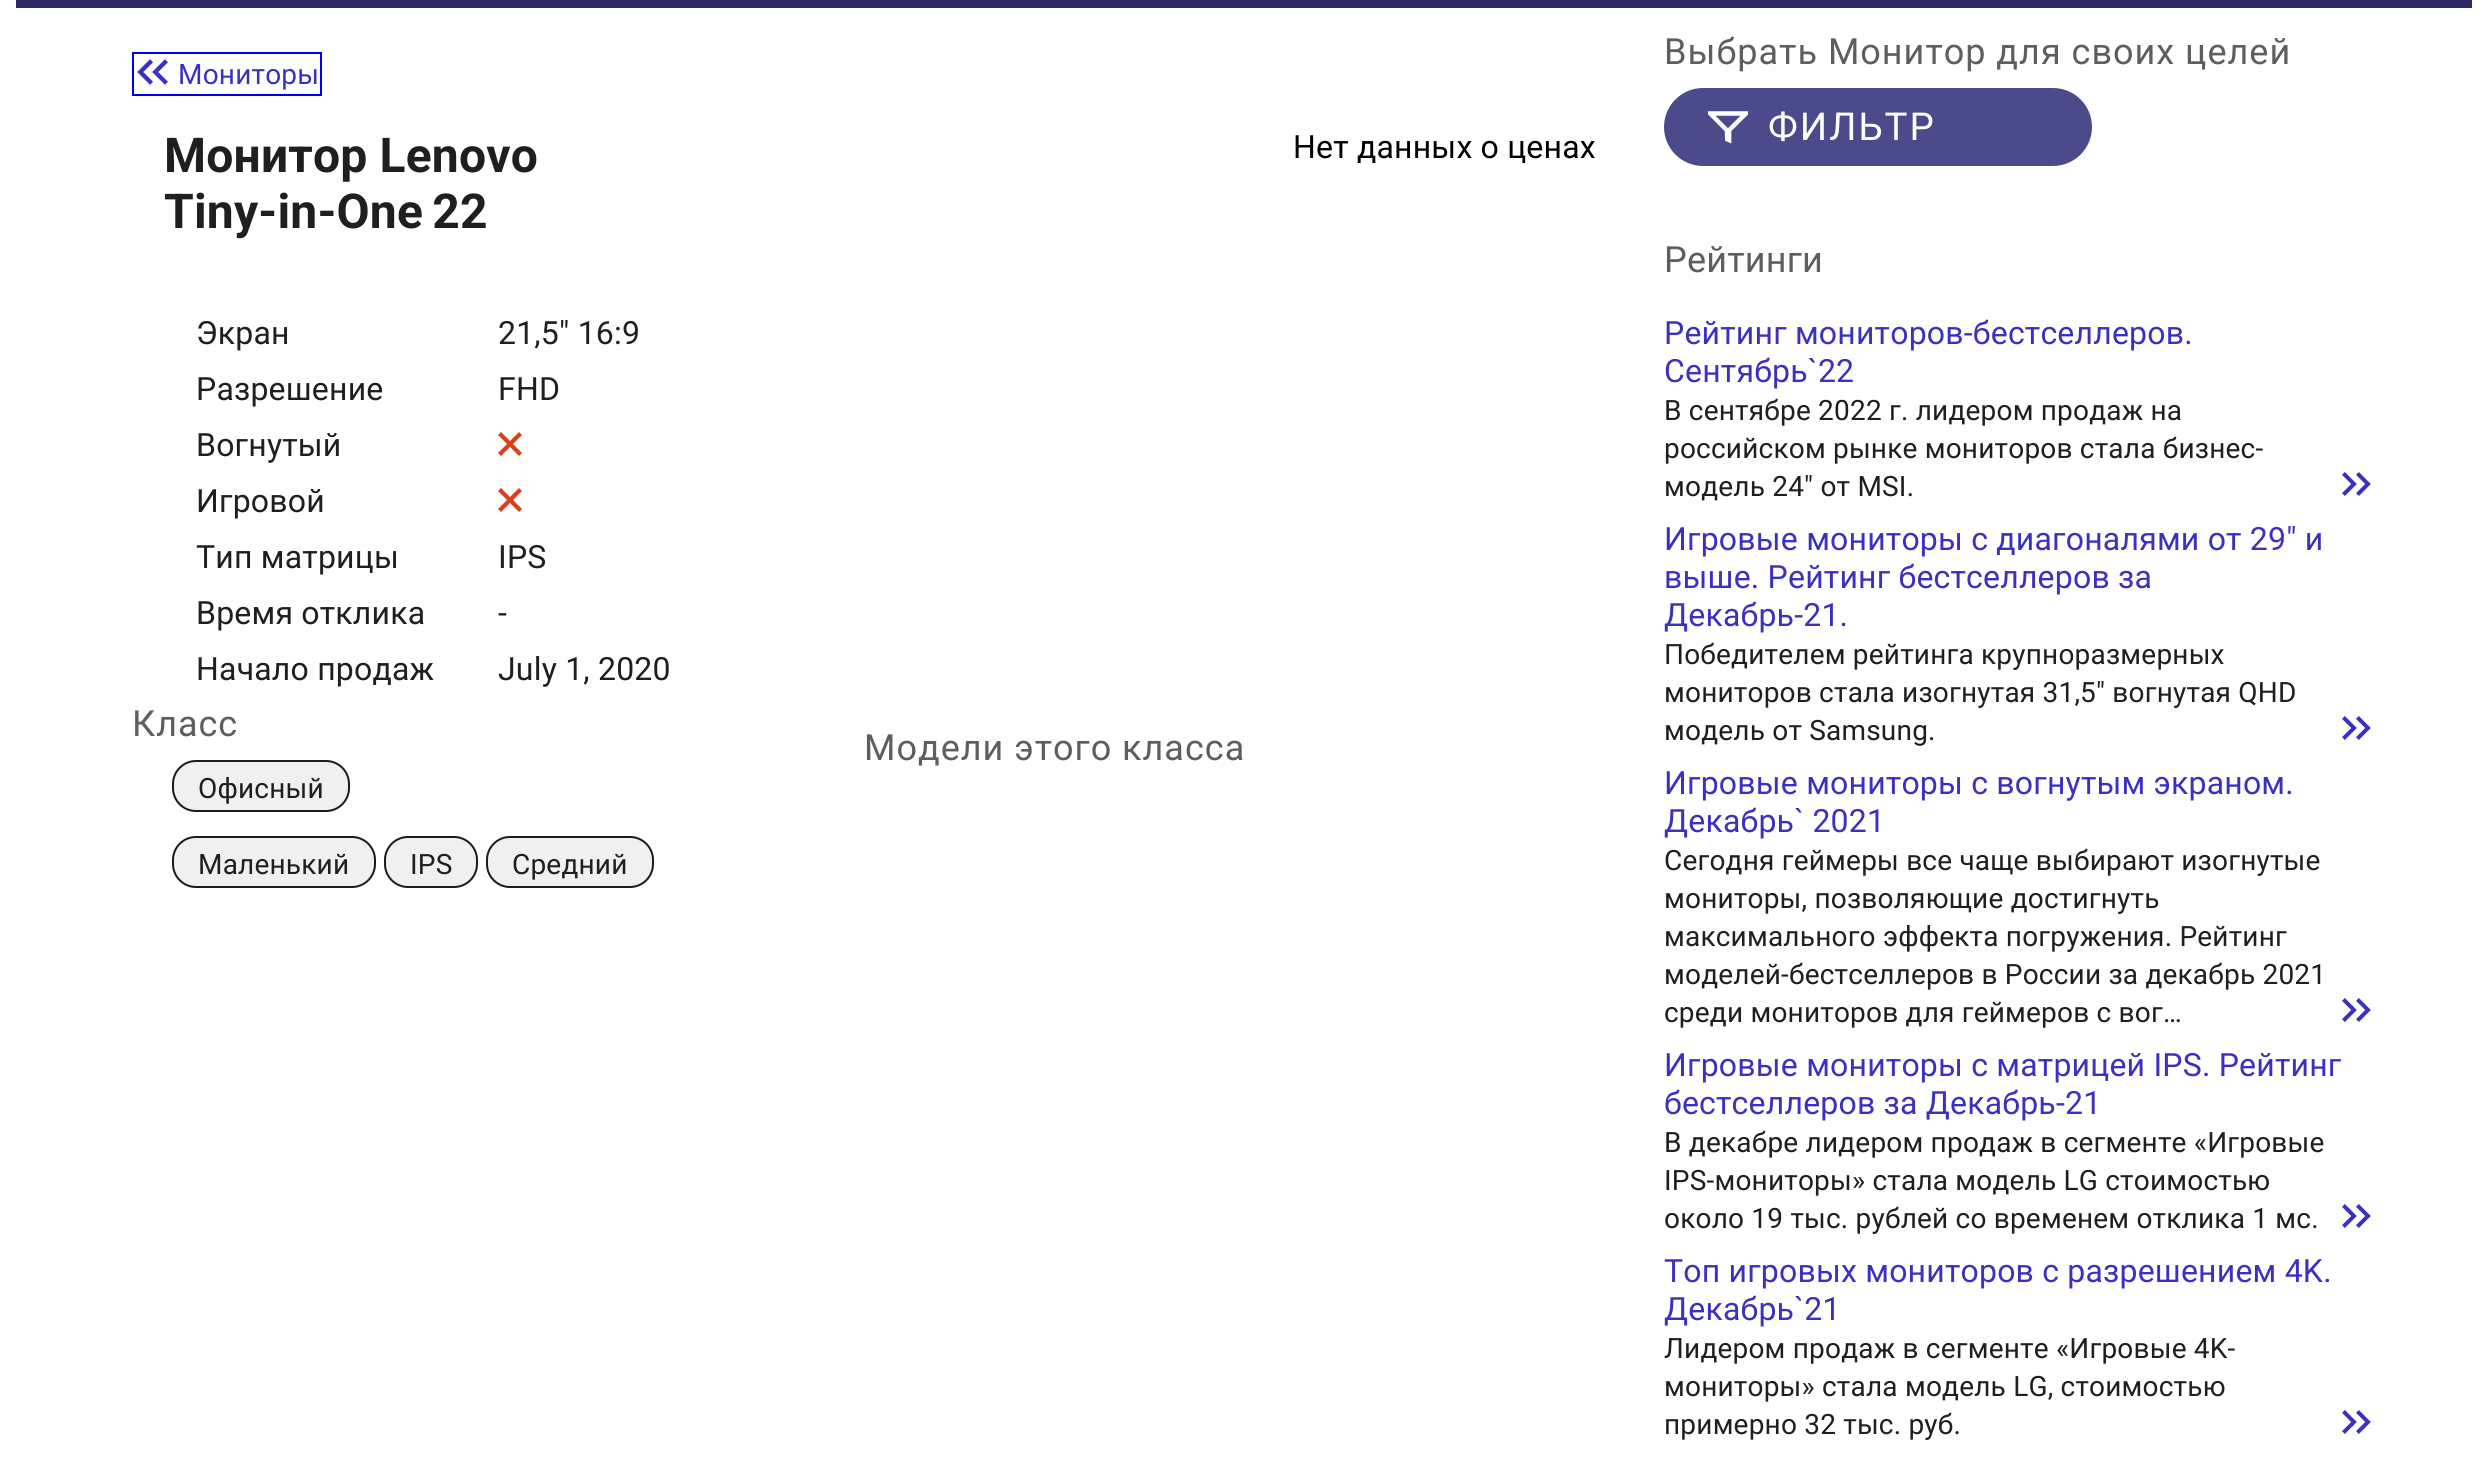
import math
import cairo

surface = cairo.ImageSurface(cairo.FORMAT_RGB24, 2487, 1464)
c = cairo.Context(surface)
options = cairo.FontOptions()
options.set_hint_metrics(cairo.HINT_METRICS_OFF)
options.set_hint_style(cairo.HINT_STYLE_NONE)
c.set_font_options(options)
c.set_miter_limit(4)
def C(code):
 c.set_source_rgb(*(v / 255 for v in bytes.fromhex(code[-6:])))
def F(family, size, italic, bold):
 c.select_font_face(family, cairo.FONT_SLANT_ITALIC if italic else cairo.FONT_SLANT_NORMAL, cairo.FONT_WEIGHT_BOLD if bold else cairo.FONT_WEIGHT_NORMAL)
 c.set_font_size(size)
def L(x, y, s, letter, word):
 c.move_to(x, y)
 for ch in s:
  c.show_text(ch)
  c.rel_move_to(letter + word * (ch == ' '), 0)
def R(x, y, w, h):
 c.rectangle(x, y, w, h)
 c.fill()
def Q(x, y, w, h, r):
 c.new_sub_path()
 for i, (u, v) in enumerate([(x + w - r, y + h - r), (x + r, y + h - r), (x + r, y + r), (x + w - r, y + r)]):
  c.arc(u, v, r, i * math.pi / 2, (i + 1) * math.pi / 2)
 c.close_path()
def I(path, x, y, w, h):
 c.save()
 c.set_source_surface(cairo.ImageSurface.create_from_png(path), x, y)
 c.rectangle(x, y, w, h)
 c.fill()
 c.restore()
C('ffffff')
c.paint()
C('2e2966')
R(16,0,2456,8)
c.rectangle(133,53,188,42)
C('0000ee')
c.stroke()
I('1.png',137,59,31,26)
F('Roboto',28,0,0)
C('3c30bf')
L(178,84,'Мониторы',.2,0)
F('Roboto',48,0,1)
C('1f1f1f')
L(164,172,'Монитор Lenovo',.2,0)
L(164,228,'Tiny-in-One 22',.2,-3)
F('Roboto',32,0,0)
C('000000')
L(1293,158,'Нет данных о ценах',.2,0)
C('1f1f1f')
L(196,344,'Экран',.2,0)
L(498,344,'21,5" 16:9',.2,0)
L(196,400,'Разрешение',.2,0)
L(498,400,'FHD',.2,0)
L(196,456,'Вогнутый',.2,0)
C('d9401a')
c.set_fill_rule(cairo.FILL_RULE_EVEN_ODD)
c.new_path()
c.move_to(522,435)
c.line_to(513,444)
c.line_to(522,453)
c.line_to(519,456)
c.line_to(510,447)
c.line_to(501,456)
c.line_to(498,453)
c.line_to(507,444)
c.line_to(498,435)
c.line_to(501,432)
c.line_to(510,441)
c.line_to(519,432)
c.close_path()
c.fill()
C('1f1f1f')
L(196,512,'Игровой',.2,0)
C('d9401a')
c.new_path()
c.move_to(522,491)
c.line_to(513,500)
c.line_to(522,509)
c.line_to(519,512)
c.line_to(510,503)
c.line_to(501,512)
c.line_to(498,509)
c.line_to(507,500)
c.line_to(498,491)
c.line_to(501,488)
c.line_to(510,497)
c.line_to(519,488)
c.close_path()
c.fill()
C('1f1f1f')
L(196,568,'Тип матрицы',.2,0)
L(498,568,'IPS',.2,0)
L(196,624,'Время отклика',.2,0)
L(498,624,'-',.2,0)
L(196,680,'Начало продаж',.2,0)
L(498,680,'July 1, 2020',.2,0)
F('Roboto',36,0,0)
C('5e5e5e')
L(132,736,'Класс',1,0)
C('f0f0f0')
Q(172,760,178,52,24)
c.fill()
Q(173,761,176,50,23)
c.set_source_rgba(0,0,0,0.88)
c.stroke()
F('Roboto',28,0,0)
C('1f1f1f')
L(198,798,'Офисный',.2,0)
C('f0f0f0')
Q(172,836,204,52,24)
c.fill()
Q(173,837,202,50,23)
c.set_source_rgba(0,0,0,0.88)
c.stroke()
C('1f1f1f')
L(198,874,'Маленький',.2,0)
C('f0f0f0')
Q(384,836,94,52,24)
c.fill()
Q(385,837,92,50,23)
c.set_source_rgba(0,0,0,0.88)
c.stroke()
C('1f1f1f')
L(410,874,'IPS',.2,0)
C('f0f0f0')
Q(486,836,168,52,24)
c.fill()
Q(487,837,166,50,23)
c.set_source_rgba(0,0,0,0.88)
c.stroke()
C('1f1f1f')
L(512,874,'Средний',.2,0)
F('Roboto',36,0,0)
C('5e5e5e')
L(864,760,'Модели этого класса',1,0)
L(1664,64,'Выбрать Монитор для своих целей',1,0)
C('4b4a8a')
Q(1664,88,428,78,39)
c.fill()
I('2.png',1708,111,40,33)
F('Roboto',38.5,0,0)
C('ffffff')
L(1768,140,'ФИЛЬТР',2,0)
F('Roboto',36,0,0)
C('5e5e5e')
L(1664,272,'Рейтинги',.2,0)
F('Roboto',32,0,0)
C('3c30bf')
L(1664,344,'Рейтинг мониторов-бестселлеров.',.2,0)
L(1664,382,'Сентябрь`22',.2,0)
F('Roboto',28,0,0)
C('1f1f1f')
L(1664,420,'В сентябре 2022 г. лидером продаж на',.2,0)
L(1664,458,'российском рынке мониторов стала бизнес-',.2,0)
L(1664,496,'модель 24" от MSI.',.2,0)
I('3.png',2342,472,29,24)
F('Roboto',32,0,0)
C('3c30bf')
L(1664,550,'Игровые мониторы с диагоналями от 29" и',.2,0)
L(1664,588,'выше. Рейтинг бестселлеров за',.2,0)
L(1664,626,'Декабрь-21.',.2,0)
F('Roboto',28,0,0)
C('1f1f1f')
L(1664,664,'Победителем рейтинга крупноразмерных',.2,0)
L(1664,702,'мониторов стала изогнутая 31,5" вогнутая QHD',.2,0)
L(1664,740,'модель от Samsung.',.2,0)
I('3.png',2342,716,29,24)
F('Roboto',32,0,0)
C('3c30bf')
L(1664,794,'Игровые мониторы с вогнутым экраном.',.2,0)
L(1664,832,'Декабрь` 2021',.2,0)
F('Roboto',28,0,0)
C('1f1f1f')
L(1664,870,'Сегодня геймеры все чаще выбирают изогнутые',.2,0)
L(1664,908,'мониторы, позволяющие достигнуть',.2,0)
L(1664,946,'максимального эффекта погружения. Рейтинг',.2,0)
L(1664,984,'моделей-бестселлеров в России за декабрь 2021',.2,0)
L(1664,1022,'среди мониторов для геймеров с вог…',.2,0)
I('3.png',2342,998,29,24)
F('Roboto',32,0,0)
C('3c30bf')
L(1664,1076,'Игровые мониторы c матрицей IPS. Рейтинг',.2,0)
L(1664,1114,'бестселлеров за Декабрь-21',.2,0)
F('Roboto',28,0,0)
C('1f1f1f')
L(1664,1152,'В декабре лидером продаж в сегменте «Игровые',.2,0)
L(1664,1190,'IPS-мониторы» стала модель LG стоимостью',.2,0)
L(1664,1228,'около 19 тыс. рублей cо временем отклика 1 мс.',.2,0)
I('3.png',2342,1204,29,24)
F('Roboto',32,0,0)
C('3c30bf')
L(1664,1282,'Топ игровых мониторов с разрешением 4K.',.2,0)
L(1664,1320,'Декабрь`21',.2,0)
F('Roboto',28,0,0)
C('1f1f1f')
L(1664,1358,'Лидером продаж в сегменте «Игровые 4K-',.2,0)
L(1664,1396,'мониторы» стала модель LG, стоимостью',.2,0)
L(1664,1434,'примерно 32 тыс. руб.',.2,0)
I('3.png',2342,1410,29,24)
surface.write_to_png('o.png')
